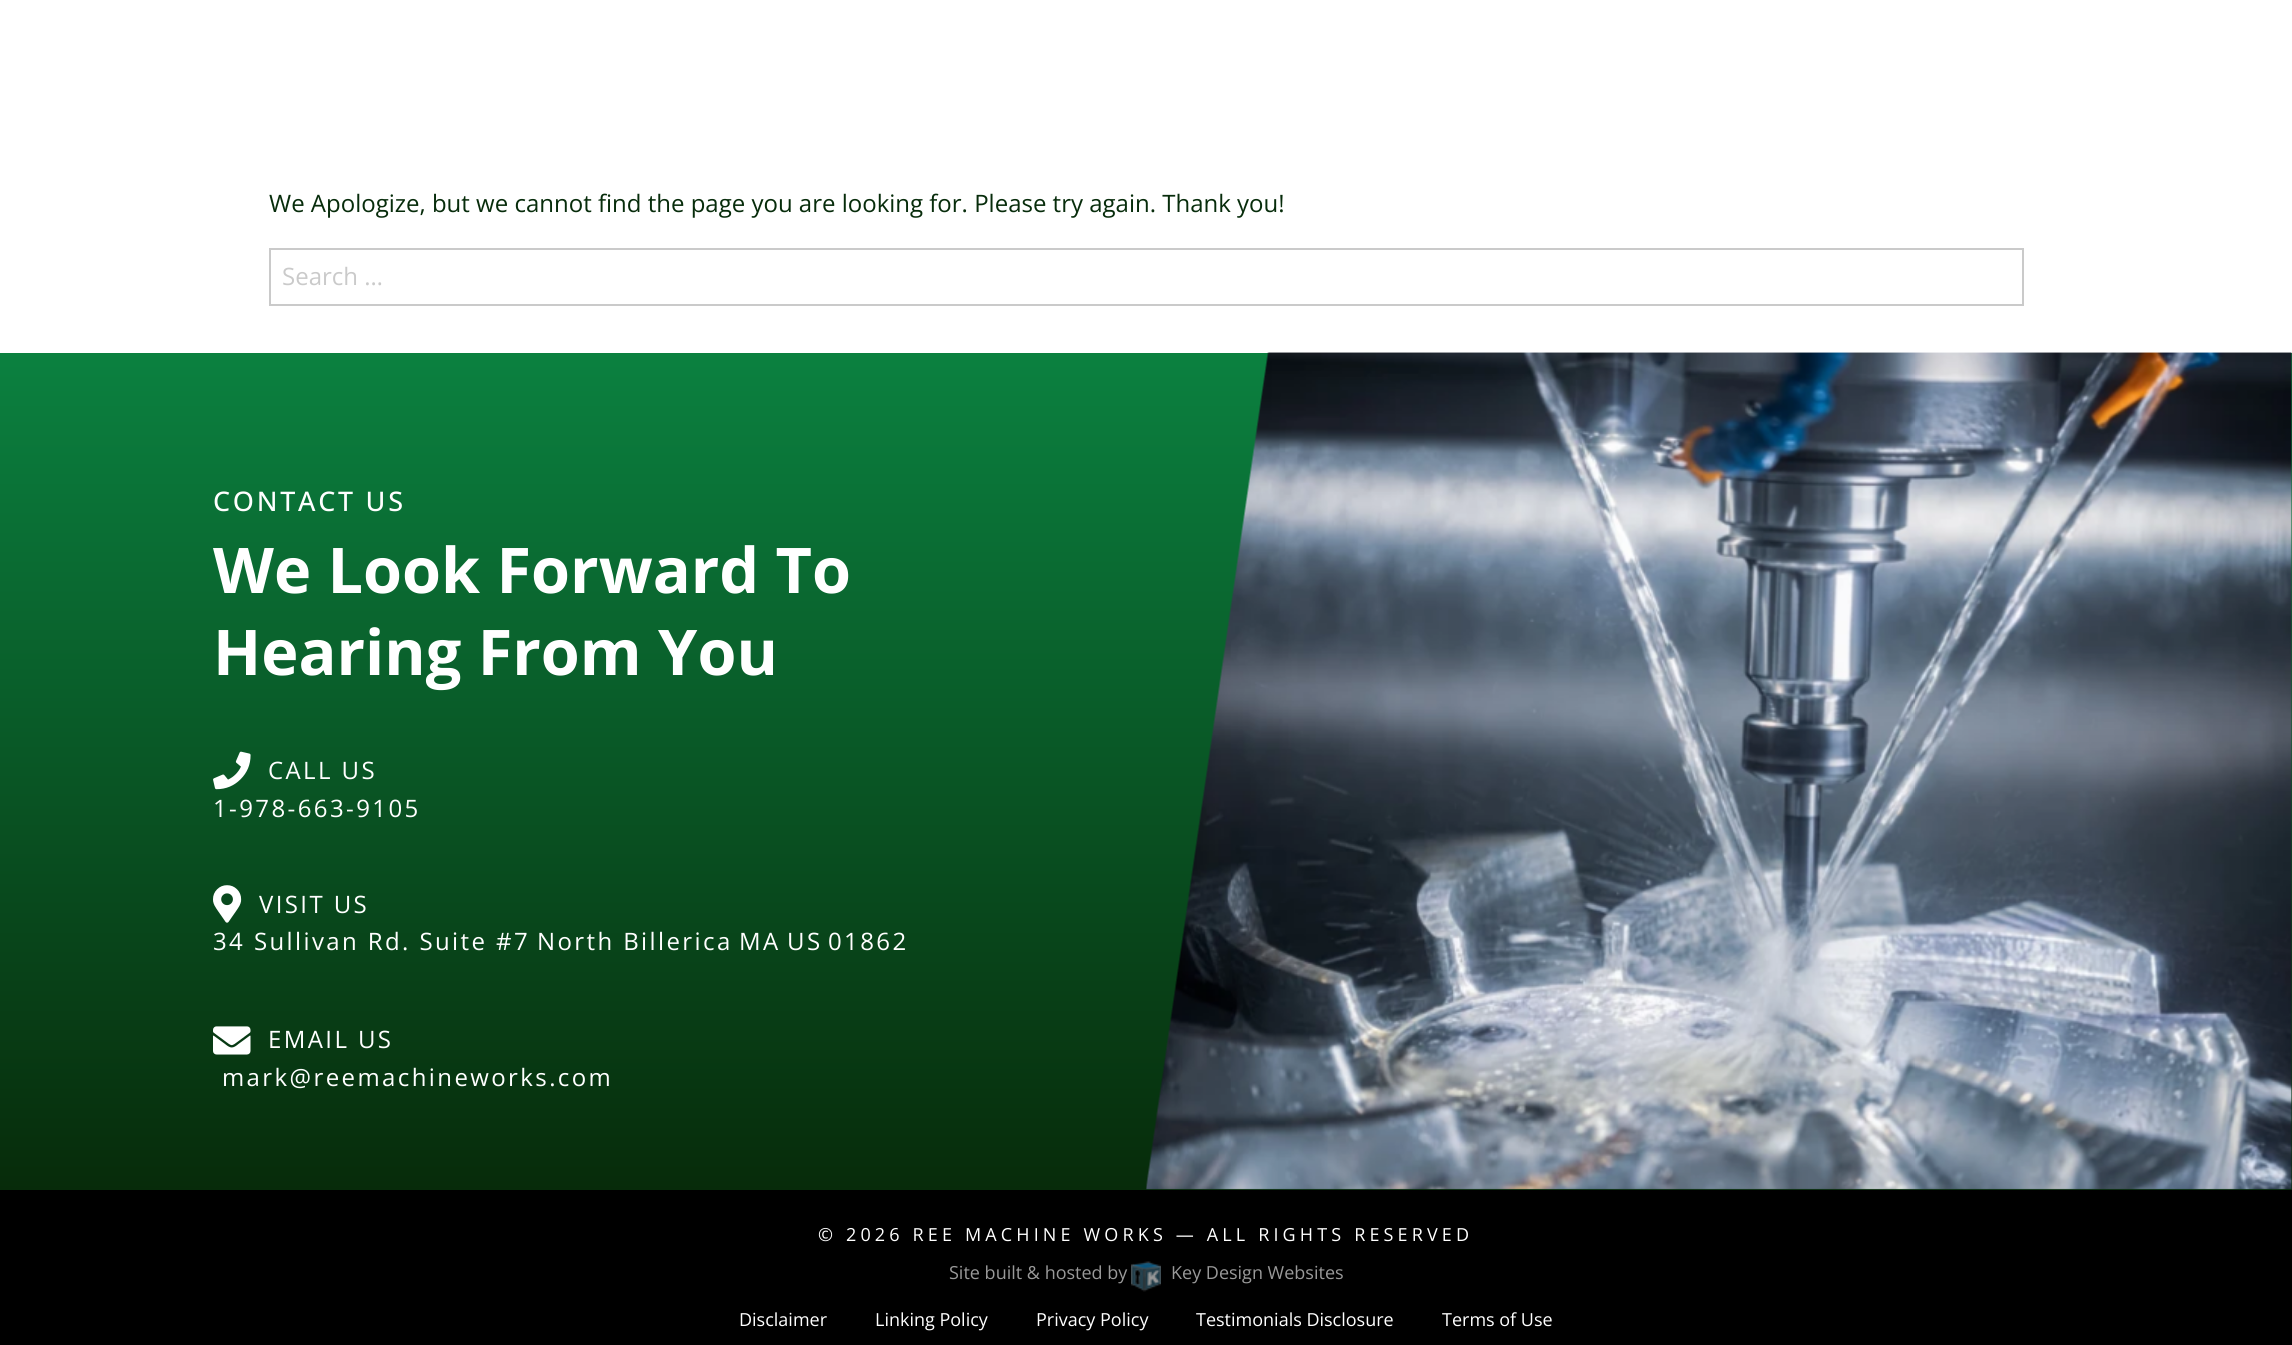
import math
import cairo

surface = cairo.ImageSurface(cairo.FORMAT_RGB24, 2292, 1345)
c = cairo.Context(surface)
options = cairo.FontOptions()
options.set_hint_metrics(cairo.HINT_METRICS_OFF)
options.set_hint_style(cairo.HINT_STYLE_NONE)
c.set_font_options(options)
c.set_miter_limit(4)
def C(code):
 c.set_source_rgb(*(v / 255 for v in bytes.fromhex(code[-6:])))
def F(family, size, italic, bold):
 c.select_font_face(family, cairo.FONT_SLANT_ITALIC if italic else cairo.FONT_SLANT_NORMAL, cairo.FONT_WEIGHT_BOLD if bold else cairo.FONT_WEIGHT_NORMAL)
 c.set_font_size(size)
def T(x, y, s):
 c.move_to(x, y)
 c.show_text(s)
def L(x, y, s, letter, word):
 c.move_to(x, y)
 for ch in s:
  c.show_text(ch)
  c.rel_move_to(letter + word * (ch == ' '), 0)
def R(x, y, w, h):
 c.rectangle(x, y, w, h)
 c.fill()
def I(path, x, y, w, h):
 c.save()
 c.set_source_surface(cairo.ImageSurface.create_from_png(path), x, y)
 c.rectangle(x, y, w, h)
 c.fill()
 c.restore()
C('ffffff')
c.paint()
F('Open Sans',24,0,0)
C('072c0b')
T(269,212,'We Apologize, but we cannot find the page you are looking for. Please try again. Thank you!')
c.rectangle(270,249,1753,56)
C('cacaca')
c.stroke()
T(282,285,'Search …')
gradient = cairo.LinearGradient(1146,352,1146,1190)
gradient.add_color_stop_rgba(0,0.043,0.506,0.251,1)
gradient.add_color_stop_rgba(1,0.027,0.169,0.039,1)
c.set_source(gradient)
R(0,353,2292,837)
F('Open Sans Medium',27,0,0)
C('ffffff')
L(213,511,'CONTACT US',2.75,0)
F('Open Sans',63,0,1)
T(213,593,'We Look Forward To')
T(213,675,'Hearing From You')
I('1.png',213,751,38,39)
F('Open Sans',24,0,0)
L(268,779,'CALL US',2.4,0)
L(213,817,'1-978-663-9105',2.4,0)
I('2.png',213,885,29,38)
L(259,913,'VISIT US',2.4,0)
L(213,950,'34 Sullivan Rd. Suite #7',2.4,0)
L(537,950,'North Billerica',2.4,0)
L(739,950,'MA',2.4,0)
L(787,950,'US',2.4,0)
L(828,950,'01862',2.4,0)
I('3.png',213,1026,38,29)
L(268,1048,'EMAIL US',2.4,0)
L(222,1086,'mark@reemachineworks.com',2.4,0)
I('4.png',1146,352,1146,838)
C('000000')
R(0,1190,2292,155)
F('Open Sans',18,0,0)
C('ffffff')
L(818,1241,'© 2026 REE MACHINE WORKS — ALL RIGHTS RESERVED',4.15,0)
C('999999')
T(949,1279,'Site built & hosted by')
I('5.png',1131,1261,30,31)
T(1171,1279,'Key Design Websites')
C('ffffff')
T(739,1326,'Disclaimer')
T(875,1326,'Linking Policy')
T(1036,1326,'Privacy Policy')
T(1196,1326,'Testimonials Disclosure')
T(1442,1326,'Terms of Use')
surface.write_to_png('o.png')
